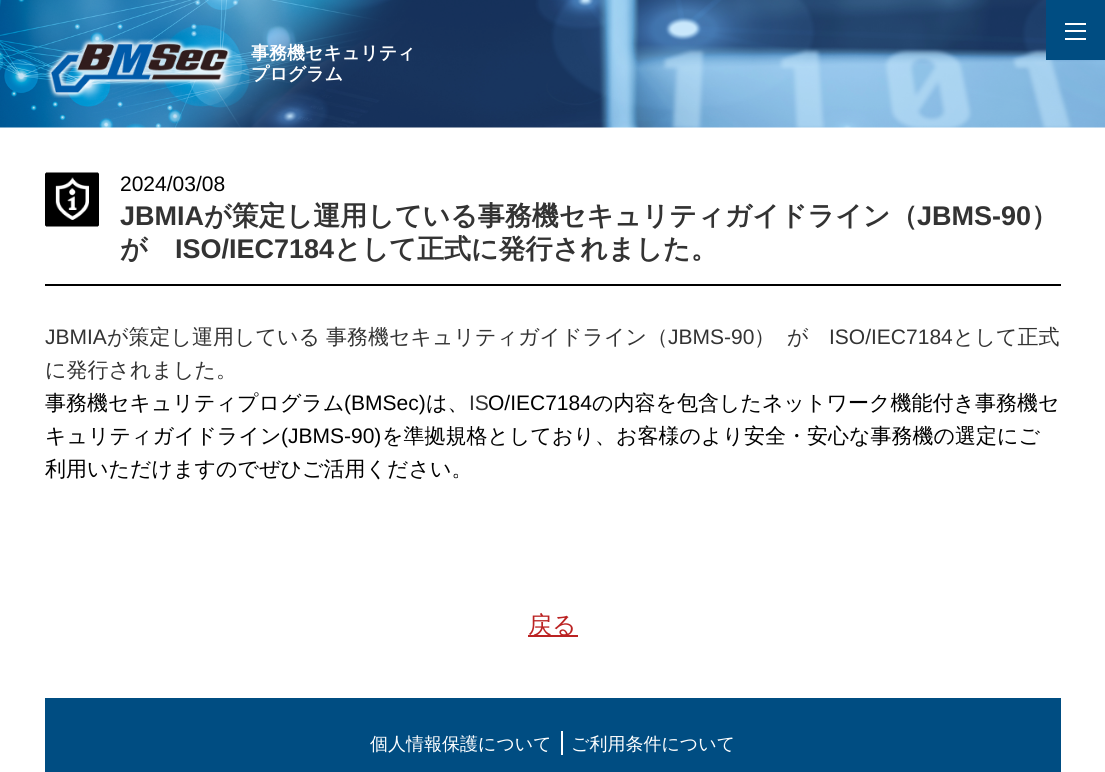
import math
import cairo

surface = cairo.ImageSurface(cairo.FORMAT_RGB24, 1105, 772)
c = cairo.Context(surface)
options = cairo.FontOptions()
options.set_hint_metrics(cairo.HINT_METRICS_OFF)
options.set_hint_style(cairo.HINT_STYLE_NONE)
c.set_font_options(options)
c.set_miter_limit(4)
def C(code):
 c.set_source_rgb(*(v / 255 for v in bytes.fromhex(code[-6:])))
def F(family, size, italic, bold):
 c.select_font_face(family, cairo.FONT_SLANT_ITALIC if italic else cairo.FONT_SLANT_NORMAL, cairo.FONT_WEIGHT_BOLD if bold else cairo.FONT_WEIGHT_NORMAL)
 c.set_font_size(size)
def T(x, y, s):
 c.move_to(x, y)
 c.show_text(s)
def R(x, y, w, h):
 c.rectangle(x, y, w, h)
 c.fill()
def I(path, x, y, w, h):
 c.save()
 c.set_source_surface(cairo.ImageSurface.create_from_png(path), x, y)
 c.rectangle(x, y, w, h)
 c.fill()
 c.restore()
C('ffffff')
c.paint()
I('1.png',0,0,1105,128)
I('2.png',46,38,187,60)
F('WenQuanYi Zen Hei',18,0,1)
C('ffffff')
T(251,59,'事務機セキュリティ')
T(251,80,'プログラム')
C('004d82')
R(1046,0,59,60)
C('ffffff')
R(1065,30,21,2)
R(1065,23,21,2)
R(1065,38,21,2)
C('000000')
R(45,284,1016,2)
I('3.png',45,172,54,55)
F('Liberation Sans',21,0,0)
T(120,191,'2024/03/08')
F('Liberation Sans',27,0,1)
C('333333')
T(120,225,'JBMIA')
F('WenQuanYi Zen Hei',27,0,1)
T(204,225,'が策定し運用している事務機セキュリティガイドライン（')
F('Liberation Sans',27,0,1)
T(917,225,'JBMS-90')
F('WenQuanYi Zen Hei',27,0,1)
T(1031,225,'）')
T(120,258,'が')
F('Liberation Sans',27,0,1)
T(175,258,'ISO/IEC7184')
F('WenQuanYi Zen Hei',27,0,1)
T(334,258,'として正式に発行されました。')
F('Liberation Sans',21,0,0)
T(45,344,'JBMIA')
F('WenQuanYi Zen Hei Medium',21,0,0)
T(107,344,'が策定し運用している')
T(326,344,'事務機セキュリティガイドライン（')
F('Liberation Sans',21,0,0)
T(668,344,'JBMS-90')
F('WenQuanYi Zen Hei Medium',21,0,0)
T(754,344,'）')
T(787,344,'が')
F('Liberation Sans',21,0,0)
T(829,344,'ISO/IEC7184')
F('WenQuanYi Zen Hei Medium',21,0,0)
T(953,344,'として正式')
T(45,377,'に発行されました。')
C('000000')
T(45,410,'事務機セキュリティプログラム')
F('Liberation Sans',21,0,0)
T(344,410,'(BMSec)')
F('WenQuanYi Zen Hei Medium',21,0,0)
T(426,410,'は、')
F('Liberation Sans',21,0,0)
C('333333')
T(469,410,'IS')
C('000000')
T(488,410,'O/IEC7184')
F('WenQuanYi Zen Hei Medium',21,0,0)
T(592,410,'の内容を包含したネットワーク機能付き事務機セ')
T(45,443,'キュリティガイドライン')
F('Liberation Sans',21,0,0)
T(281,443,'(JBMS-90)')
F('WenQuanYi Zen Hei Medium',21,0,0)
T(382,443,'を準拠規格としており、お客様のより安全・安心な事務機の選定にご')
T(45,476,'利用いただけますのでぜひご活用ください。')
C('bb2222')
R(528,635,50,2)
F('WenQuanYi Zen Hei Medium',24,0,0)
T(528,633,'戻る')
C('004d82')
R(45,698,1016,74)
C('ffffff')
R(561,731,2,24)
F('WenQuanYi Zen Hei Medium',18,0,0)
T(370,750,'個人情報保護について')
T(571,750,'ご利用条件について')
surface.write_to_png('o.png')
